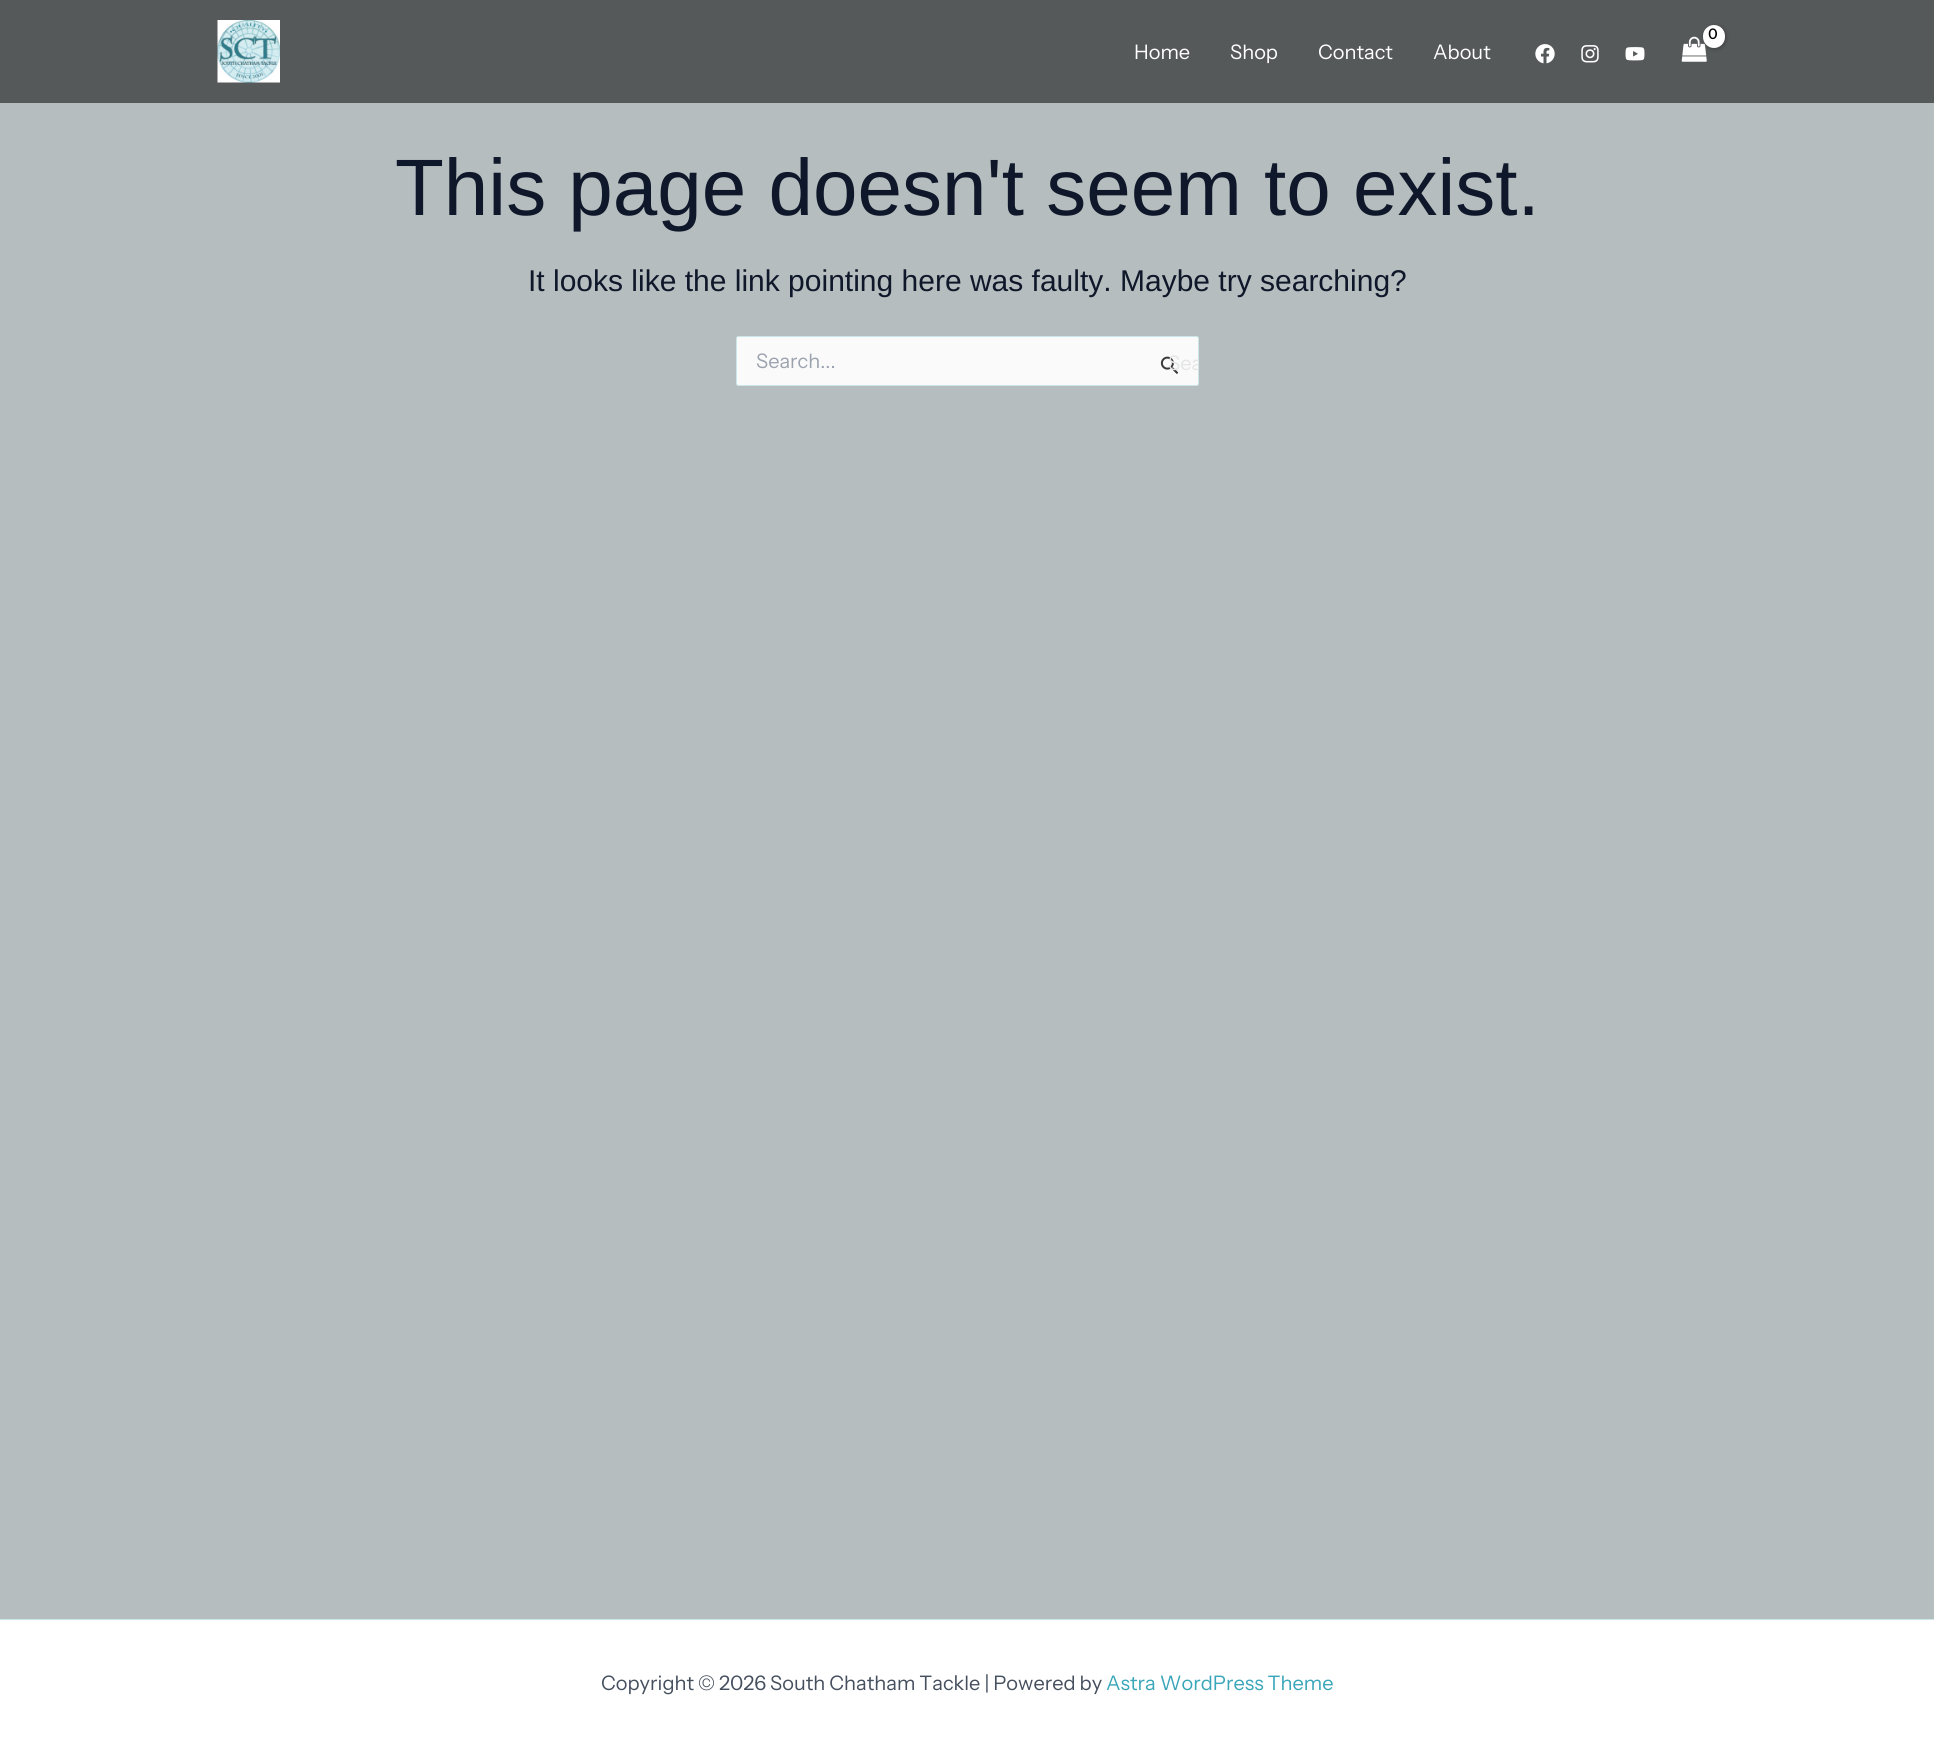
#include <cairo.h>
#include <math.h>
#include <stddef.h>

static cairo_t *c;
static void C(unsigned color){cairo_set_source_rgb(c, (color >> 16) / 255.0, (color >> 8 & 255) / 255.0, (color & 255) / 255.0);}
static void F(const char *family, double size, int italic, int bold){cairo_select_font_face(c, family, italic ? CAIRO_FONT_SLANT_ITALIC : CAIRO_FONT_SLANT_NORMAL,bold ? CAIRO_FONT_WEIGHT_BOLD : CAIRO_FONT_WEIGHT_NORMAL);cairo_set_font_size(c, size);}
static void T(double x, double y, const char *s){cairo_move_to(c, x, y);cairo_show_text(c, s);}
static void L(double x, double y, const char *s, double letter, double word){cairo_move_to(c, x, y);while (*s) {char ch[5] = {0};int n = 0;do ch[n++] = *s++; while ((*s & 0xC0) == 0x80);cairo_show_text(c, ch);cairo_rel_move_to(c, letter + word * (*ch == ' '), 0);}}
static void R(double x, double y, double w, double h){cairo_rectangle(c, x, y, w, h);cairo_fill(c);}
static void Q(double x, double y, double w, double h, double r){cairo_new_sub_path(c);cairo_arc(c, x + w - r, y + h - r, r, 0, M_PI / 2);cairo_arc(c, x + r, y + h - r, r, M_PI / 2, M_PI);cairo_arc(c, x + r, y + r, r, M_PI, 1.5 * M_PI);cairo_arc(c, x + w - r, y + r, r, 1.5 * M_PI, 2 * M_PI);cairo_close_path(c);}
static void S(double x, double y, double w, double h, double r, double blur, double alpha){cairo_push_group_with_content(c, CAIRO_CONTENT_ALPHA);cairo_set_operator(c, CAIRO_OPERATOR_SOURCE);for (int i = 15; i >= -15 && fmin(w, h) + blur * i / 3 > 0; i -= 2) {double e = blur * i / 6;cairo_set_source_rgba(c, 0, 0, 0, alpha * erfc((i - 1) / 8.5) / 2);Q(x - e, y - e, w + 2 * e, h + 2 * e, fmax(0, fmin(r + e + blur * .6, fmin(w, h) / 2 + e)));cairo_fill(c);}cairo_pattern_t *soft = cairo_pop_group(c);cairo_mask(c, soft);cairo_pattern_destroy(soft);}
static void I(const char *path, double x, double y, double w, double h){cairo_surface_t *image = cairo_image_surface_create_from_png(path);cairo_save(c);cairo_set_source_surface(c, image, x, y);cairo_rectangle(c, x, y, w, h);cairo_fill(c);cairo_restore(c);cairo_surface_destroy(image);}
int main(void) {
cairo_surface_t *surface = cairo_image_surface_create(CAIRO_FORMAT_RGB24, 1934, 1744);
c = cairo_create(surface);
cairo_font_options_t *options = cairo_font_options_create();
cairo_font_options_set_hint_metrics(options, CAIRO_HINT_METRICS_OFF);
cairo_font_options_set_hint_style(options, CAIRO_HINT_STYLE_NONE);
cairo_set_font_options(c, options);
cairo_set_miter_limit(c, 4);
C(0xb5bdbe);
cairo_paint(c);
C(0x56595a);
R(0,0,1934,103);
I("1.png",217,20,63,63);
I("2.png",1681,36,26,26);
C(0x000000);
S(1704,26,22,23,11,2,.3);
C(0xffffff);
Q(1703,25,22,23,11);
cairo_fill(c);
F("Instrument Sans",14,0,1);
C(0x000000);
L(1708,39,"0",-1,0);
F("Instrument Sans",20,0,0);
C(0xffffff);
T(1134,59,"Home");
T(1230,59,"Shop");
T(1318,59,"Contact");
T(1433,59,"About");
I("3.png",1535,44,20,20);
I("4.png",1581,45,18,18);
I("5.png",1625,47,20,14);
F("Liberation Sans",80,0,0);
C(0x0f172a);
T(395,215,"This page doesn't seem to exist.");
F("Liberation Sans",30,0,0);
T(528,291,"It looks like the link pointing here was faulty. Maybe try searching?");
C(0xfafafa);
Q(736.5,336.5,462,49,2);
cairo_fill_preserve(c);
C(0xcae6e8);
cairo_set_line_width(c,1);
cairo_stroke(c);
F("Instrument Sans",20,0,0);
C(0x9ca3af);
T(756,368,"Search...");
I("6.png",1160,356,18,18);
cairo_save(c);
Q(1143,336,56,53,2.5);
cairo_clip(c);
C(0xe4e5e5);
T(1168,370,"Sea");
cairo_restore(c);
C(0xffffff);
R(0,1620,1934,124);
C(0xcae6e8);
R(0,1619,1934,1);
C(0x454f5e);
T(601,1690,"Copyright © 2026 South Chatham Tackle | Powered by");
C(0x3aa6b9);
T(1106,1690,"Astra WordPress Theme");
cairo_surface_write_to_png(surface, "o.png");
cairo_font_options_destroy(options);
cairo_destroy(c);
cairo_surface_destroy(surface);
return 0;
}
